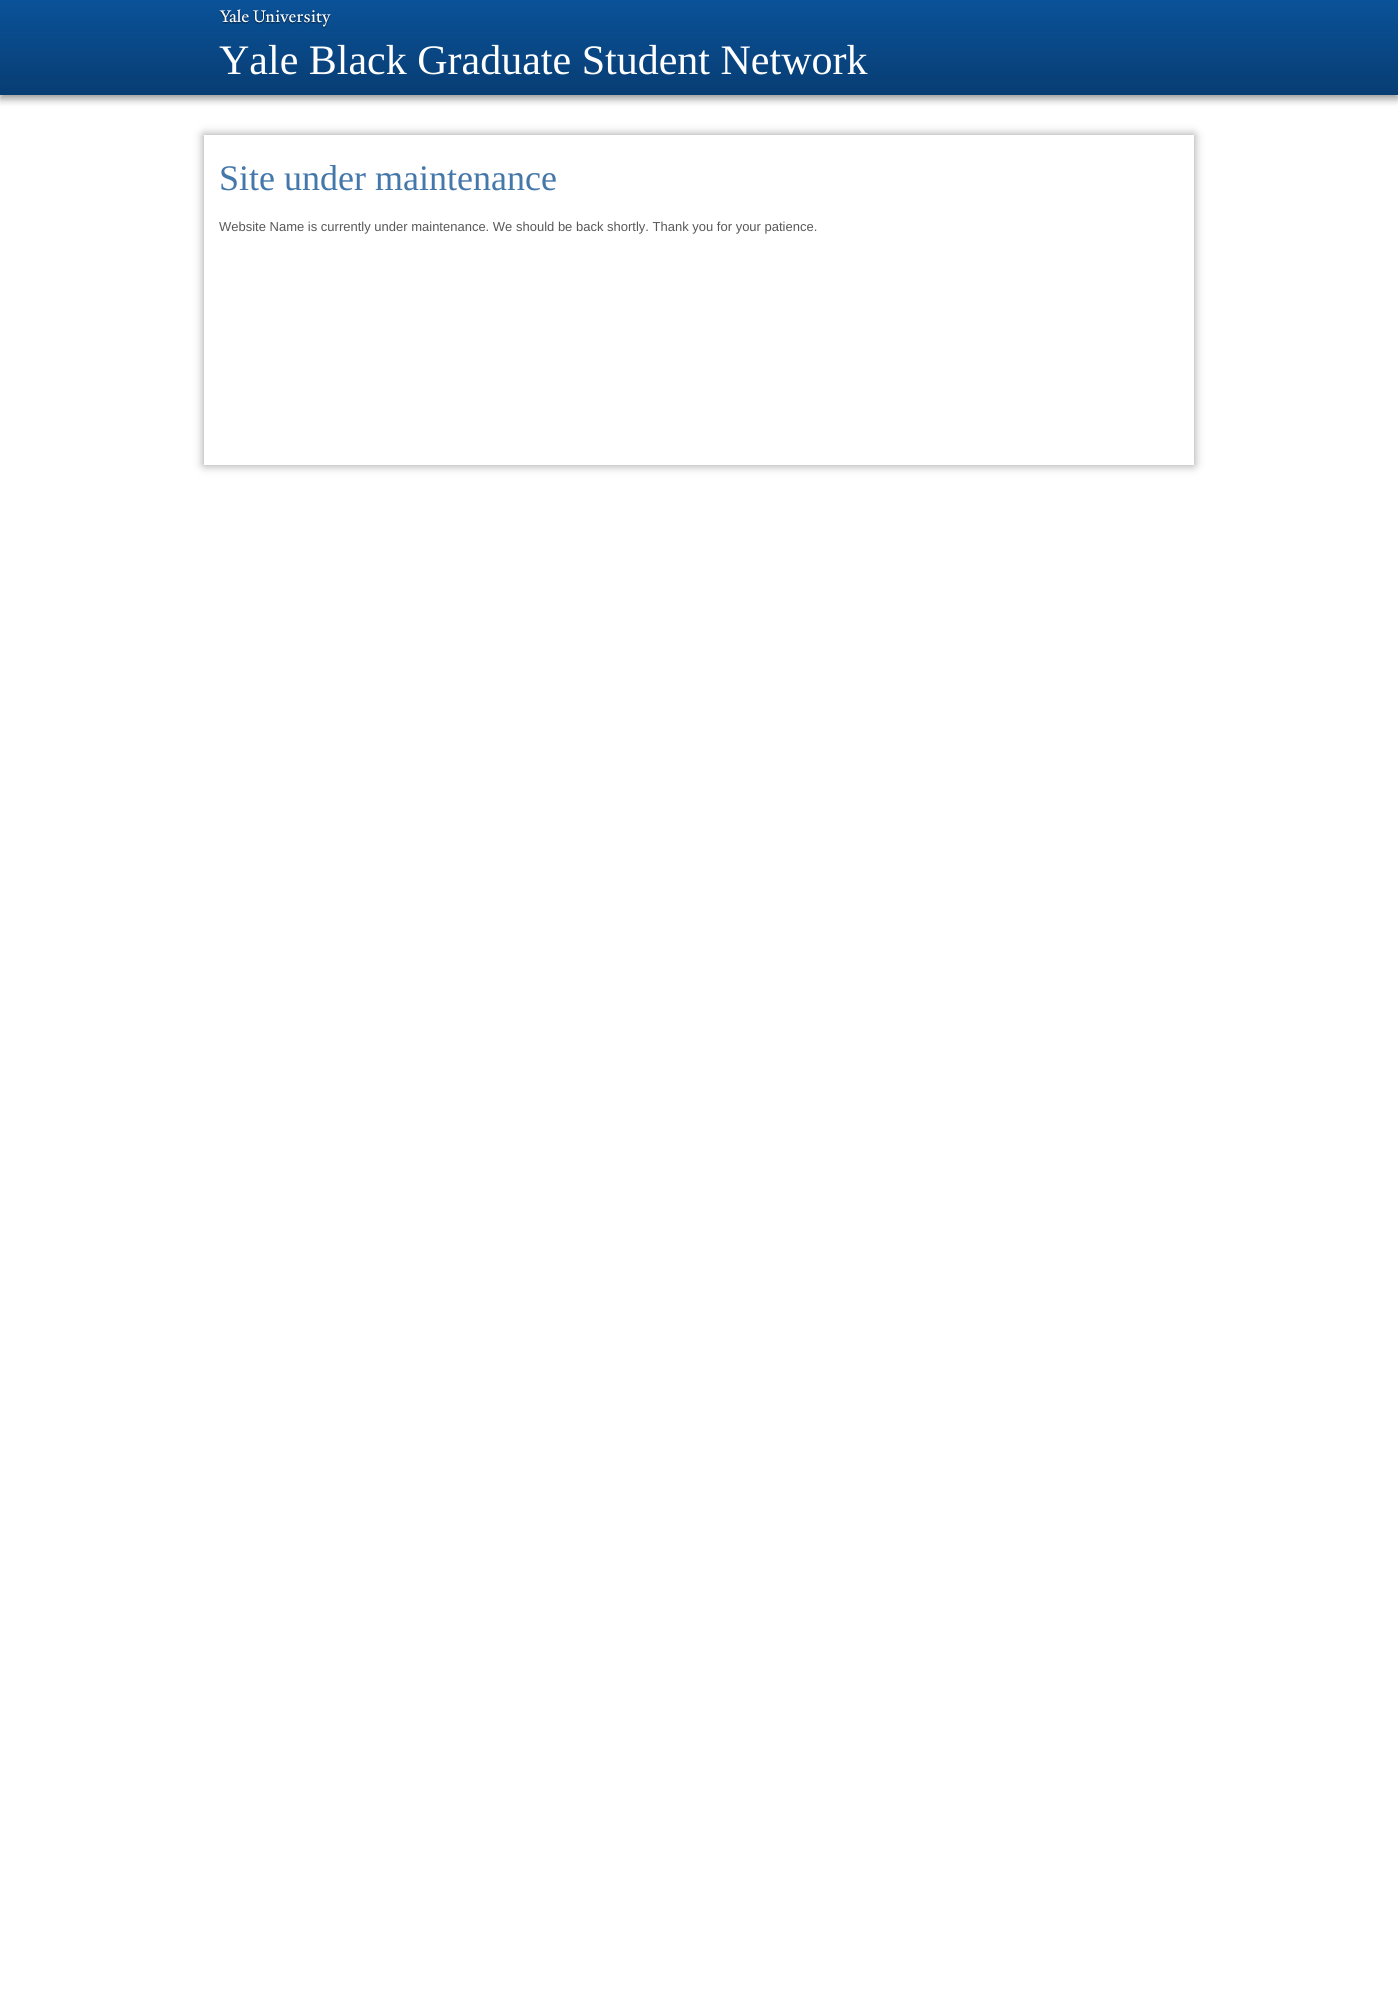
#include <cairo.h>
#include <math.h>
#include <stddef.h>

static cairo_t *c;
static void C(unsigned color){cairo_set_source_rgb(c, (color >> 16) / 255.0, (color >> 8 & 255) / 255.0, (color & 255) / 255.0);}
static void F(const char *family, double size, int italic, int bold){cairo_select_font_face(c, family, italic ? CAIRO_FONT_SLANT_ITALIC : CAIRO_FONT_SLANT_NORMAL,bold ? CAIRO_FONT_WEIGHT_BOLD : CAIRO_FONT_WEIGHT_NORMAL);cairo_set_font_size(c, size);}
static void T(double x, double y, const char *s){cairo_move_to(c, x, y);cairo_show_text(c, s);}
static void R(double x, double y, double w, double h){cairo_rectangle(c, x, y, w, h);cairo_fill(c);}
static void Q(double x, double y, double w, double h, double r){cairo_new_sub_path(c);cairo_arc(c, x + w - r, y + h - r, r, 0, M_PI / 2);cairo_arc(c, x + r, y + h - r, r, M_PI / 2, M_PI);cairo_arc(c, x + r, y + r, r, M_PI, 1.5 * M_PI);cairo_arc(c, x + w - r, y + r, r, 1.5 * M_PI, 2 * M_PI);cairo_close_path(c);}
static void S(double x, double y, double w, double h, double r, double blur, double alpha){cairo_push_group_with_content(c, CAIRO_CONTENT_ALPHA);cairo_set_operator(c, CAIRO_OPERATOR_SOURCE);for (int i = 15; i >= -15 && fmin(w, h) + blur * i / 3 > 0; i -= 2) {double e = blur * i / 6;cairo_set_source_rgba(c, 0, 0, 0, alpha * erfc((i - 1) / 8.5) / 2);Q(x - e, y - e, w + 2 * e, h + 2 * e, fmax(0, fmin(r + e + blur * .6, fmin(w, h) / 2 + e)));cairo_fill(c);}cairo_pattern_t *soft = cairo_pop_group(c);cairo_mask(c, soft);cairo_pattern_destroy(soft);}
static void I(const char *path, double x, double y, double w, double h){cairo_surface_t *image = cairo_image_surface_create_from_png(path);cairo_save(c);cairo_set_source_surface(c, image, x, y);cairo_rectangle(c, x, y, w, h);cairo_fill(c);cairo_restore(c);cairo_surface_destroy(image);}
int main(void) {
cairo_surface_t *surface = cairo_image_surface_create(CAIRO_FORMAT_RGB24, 1398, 1989);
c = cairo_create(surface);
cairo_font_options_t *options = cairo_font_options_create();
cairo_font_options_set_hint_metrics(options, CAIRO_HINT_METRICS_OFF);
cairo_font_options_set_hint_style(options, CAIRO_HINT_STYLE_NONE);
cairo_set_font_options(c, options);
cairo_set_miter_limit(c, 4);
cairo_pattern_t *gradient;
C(0xffffff);
cairo_paint(c);
C(0x000000);
S(0,4,1398,95,0,4,.4);
gradient = cairo_pattern_create_linear(699,0,699,95);
cairo_pattern_add_color_stop_rgba(gradient,0,0.039,0.322,0.6,1);
cairo_pattern_add_color_stop_rgba(gradient,1,0.031,0.239,0.451,1);
cairo_set_source(c,gradient);
cairo_pattern_destroy(gradient);
R(0,0,1398,95);
I("1.png",219,9,112,20);
F("Liberation Serif",42,0,0);
C(0xffffff);
T(219,74,"Yale Black Graduate Student Network");
cairo_save(c);
cairo_set_fill_rule(c,CAIRO_FILL_RULE_EVEN_ODD);
cairo_new_path(c);
cairo_move_to(c,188,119);
cairo_line_to(c,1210,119);
cairo_line_to(c,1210,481);
cairo_line_to(c,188,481);
cairo_close_path(c);
cairo_move_to(c,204,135);
cairo_line_to(c,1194,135);
cairo_line_to(c,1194,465);
cairo_line_to(c,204,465);
cairo_close_path(c);
cairo_clip(c);
C(0x000000);
S(204,135,990,330,0,5,.4);
cairo_restore(c);
F("Liberation Serif",36,0,0);
C(0x4477aa);
T(219,190,"Site under maintenance");
F("Liberation Sans",13,0,0);
C(0x585858);
T(219,231,"Website Name is currently under maintenance. We should be back shortly. Thank you for your patience.");
cairo_surface_write_to_png(surface, "o.png");
cairo_font_options_destroy(options);
cairo_destroy(c);
cairo_surface_destroy(surface);
return 0;
}
